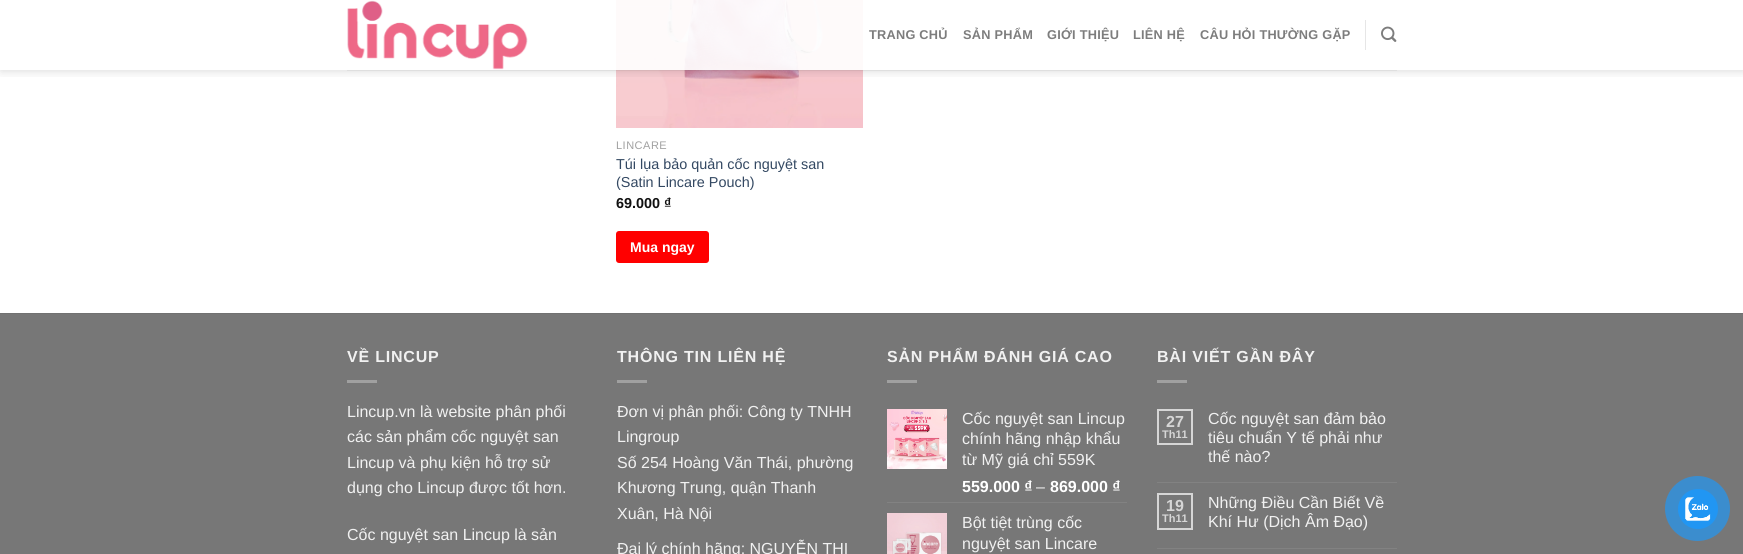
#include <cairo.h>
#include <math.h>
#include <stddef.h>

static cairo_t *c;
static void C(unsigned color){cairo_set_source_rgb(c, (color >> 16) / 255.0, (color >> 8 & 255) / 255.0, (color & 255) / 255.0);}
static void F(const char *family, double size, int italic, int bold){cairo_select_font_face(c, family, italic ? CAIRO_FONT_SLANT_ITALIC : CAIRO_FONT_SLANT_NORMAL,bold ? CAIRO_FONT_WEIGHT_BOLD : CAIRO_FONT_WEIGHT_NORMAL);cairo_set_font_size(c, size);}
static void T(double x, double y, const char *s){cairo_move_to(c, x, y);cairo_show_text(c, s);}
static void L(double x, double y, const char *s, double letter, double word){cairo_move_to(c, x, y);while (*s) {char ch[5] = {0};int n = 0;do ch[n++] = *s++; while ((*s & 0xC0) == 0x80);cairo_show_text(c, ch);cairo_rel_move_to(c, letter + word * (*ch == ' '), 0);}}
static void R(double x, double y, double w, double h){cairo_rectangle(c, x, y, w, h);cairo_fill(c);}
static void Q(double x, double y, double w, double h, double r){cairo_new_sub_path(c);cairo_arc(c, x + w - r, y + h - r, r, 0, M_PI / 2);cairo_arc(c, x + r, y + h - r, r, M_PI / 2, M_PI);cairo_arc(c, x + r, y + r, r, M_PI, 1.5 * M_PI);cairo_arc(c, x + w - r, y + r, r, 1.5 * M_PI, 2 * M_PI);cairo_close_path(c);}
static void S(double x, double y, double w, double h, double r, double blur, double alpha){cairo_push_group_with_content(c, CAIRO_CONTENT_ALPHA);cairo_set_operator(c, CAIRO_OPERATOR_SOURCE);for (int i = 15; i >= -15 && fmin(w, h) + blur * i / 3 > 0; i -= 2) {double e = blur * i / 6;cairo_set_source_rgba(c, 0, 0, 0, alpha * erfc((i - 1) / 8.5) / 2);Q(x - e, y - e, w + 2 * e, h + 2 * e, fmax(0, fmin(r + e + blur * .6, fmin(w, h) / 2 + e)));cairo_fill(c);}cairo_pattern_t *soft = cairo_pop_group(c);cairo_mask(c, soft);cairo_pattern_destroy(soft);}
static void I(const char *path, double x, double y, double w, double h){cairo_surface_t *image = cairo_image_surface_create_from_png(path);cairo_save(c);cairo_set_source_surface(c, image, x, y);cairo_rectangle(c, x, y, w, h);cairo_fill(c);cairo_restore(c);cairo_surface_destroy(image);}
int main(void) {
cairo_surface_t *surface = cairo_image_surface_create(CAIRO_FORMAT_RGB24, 1743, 554);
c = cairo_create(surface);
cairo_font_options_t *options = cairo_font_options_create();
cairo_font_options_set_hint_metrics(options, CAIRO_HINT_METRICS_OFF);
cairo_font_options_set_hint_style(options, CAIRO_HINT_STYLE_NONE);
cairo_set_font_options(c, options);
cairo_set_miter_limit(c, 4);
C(0xffffff);
cairo_paint(c);
I("3.png",616,0,247,128);
cairo_save(c);
cairo_rectangle(c,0,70,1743,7);
cairo_clip(c);
C(0x000000);
S(1,1,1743,70,0,5,.15);
cairo_restore(c);
cairo_set_source_rgba(c,1,1,1,0.9);
R(616,0,247,70);
I("1.png",347,0,181,70);
F("Liberation Sans",12.75,0,1);
C(0x7d7d7d);
L(869,39,"TRANG CHỦ",.25,0);
L(963,39,"SẢN PHẨM",.25,0);
L(1047,39,"GIỚI THIỆU",.25,0);
L(1133,39,"LIÊN HỆ",.25,0);
L(1200,39,"CÂU HỎI THƯỜNG GẶP",.25,0);
C(0xe6e6e6);
R(1365,20,1,30);
I("2.png",1381,26,16,16);
cairo_set_source_rgba(c,0.467,0.467,0.467,0.1);
R(347,70,1050,1);
F("Liberation Sans",11,0,0);
C(0xa0a0a0);
L(616,149,"LINCARE",.5,0);
F("Liberation Sans",14.4,0,0);
C(0x334862);
T(616,169,"Túi lụa bảo quản cốc nguyệt san");
T(616,187,"(Satin Lincare Pouch)");
F("Liberation Sans",14.4,0,1);
C(0x111111);
T(616,208,"69.000 ₫");
C(0xff0000);
Q(616,231,93,32,3);
cairo_fill(c);
F("Liberation Sans",14,0,1);
C(0xffffff);
T(630,252,"Mua ngay");
C(0x777777);
R(0,314,1743,240);
C(0x717171);
R(0,313,1743,1);
F("Liberation Sans",16,0,1);
C(0xf1f1f1);
L(347,362,"VỀ LINCUP",.8,0);
C(0xa0a0a0);
R(347,380,30,3);
F("Liberation Sans",16,0,0);
C(0xf1f1f1);
T(347,417,"Lincup.vn là website phân phối");
T(347,442,"các sản phẩm cốc nguyệt san");
T(347,468,"Lincup và phụ kiện hỗ trợ sử");
T(347,493,"dụng cho Lincup được tốt hơn.");
T(347,540,"Cốc nguyệt san Lincup là sản");
F("Liberation Sans",16,0,1);
L(617,362,"THÔNG TIN LIÊN HỆ",.8,0);
C(0xa0a0a0);
R(617,380,30,3);
F("Liberation Sans",16,0,0);
C(0xf1f1f1);
T(617,417,"Đơn vị phân phối: Công ty TNHH");
T(617,442,"Lingroup");
T(617,468,"Số 254 Hoàng Văn Thái, phường");
T(617,493,"Khương Trung, quận Thanh");
T(617,519,"Xuân, Hà Nội");
T(617,554,"Đại lý chính hãng: NGUYỄN THỊ");
F("Liberation Sans",16,0,1);
L(887,362,"SẢN PHẨM ĐÁNH GIÁ CAO",.8,0);
C(0xa0a0a0);
R(887,380,30,3);
I("4.png",887,409,60,60);
F("Liberation Sans",16,0,0);
C(0xf1f1f1);
T(962,424,"Cốc nguyệt san Lincup");
T(962,444,"chính hãng nhập khẩu");
T(962,465,"từ Mỹ giá chỉ 559K");
F("Liberation Sans",16,0,1);
C(0xffffff);
T(962,492,"559.000 ₫");
F("Liberation Sans",16,0,0);
C(0xf1f1f1);
T(1036,492,"–");
F("Liberation Sans",16,0,1);
C(0xffffff);
T(1050,492,"869.000 ₫");
C(0x828282);
R(887,502,240,1);
I("5.png",887,513,60,41);
F("Liberation Sans",16,0,0);
C(0xf1f1f1);
T(962,528,"Bột tiệt trùng cốc");
T(962,549,"nguyệt san Lincare");
F("Liberation Sans",16,0,1);
L(1157,362,"BÀI VIẾT GẦN ĐÂY",.8,0);
C(0xa0a0a0);
R(1157,380,30,3);
cairo_rectangle(c,1158,410,34,34);
C(0xd6d6d6);
cairo_stroke(c);
T(1166,427,"27");
F("Liberation Sans",11,0,1);
T(1162,438,"Th11");
F("Liberation Sans",16,0,0);
C(0xf1f1f1);
T(1208,424,"Cốc nguyệt san đảm bảo");
T(1208,443,"tiêu chuẩn Y tế phải như");
T(1208,462,"thế nào?");
C(0x828282);
R(1157,482,240,1);
cairo_rectangle(c,1158,494,34,35);
C(0xd6d6d6);
cairo_stroke(c);
F("Liberation Sans",16,0,1);
T(1166,511,"19");
F("Liberation Sans",11,0,1);
T(1162,522,"Th11");
F("Liberation Sans",16,0,0);
C(0xf1f1f1);
T(1208,508,"Những Điều Cần Biết Về");
T(1208,527,"Khí Hư (Dịch Âm Đạo)");
C(0x828282);
R(1157,548,240,1);
C(0x3b8dce);
cairo_new_path(c);
cairo_arc(c,1697.5,508.5,32.5,0,2 * M_PI);
cairo_fill(c);
C(0x2196f3);
cairo_arc(c,1698,509,20,0,2 * M_PI);
cairo_fill(c);
I("6.png",1685,497,26,24);
cairo_surface_write_to_png(surface, "o.png");
cairo_font_options_destroy(options);
cairo_destroy(c);
cairo_surface_destroy(surface);
return 0;
}
